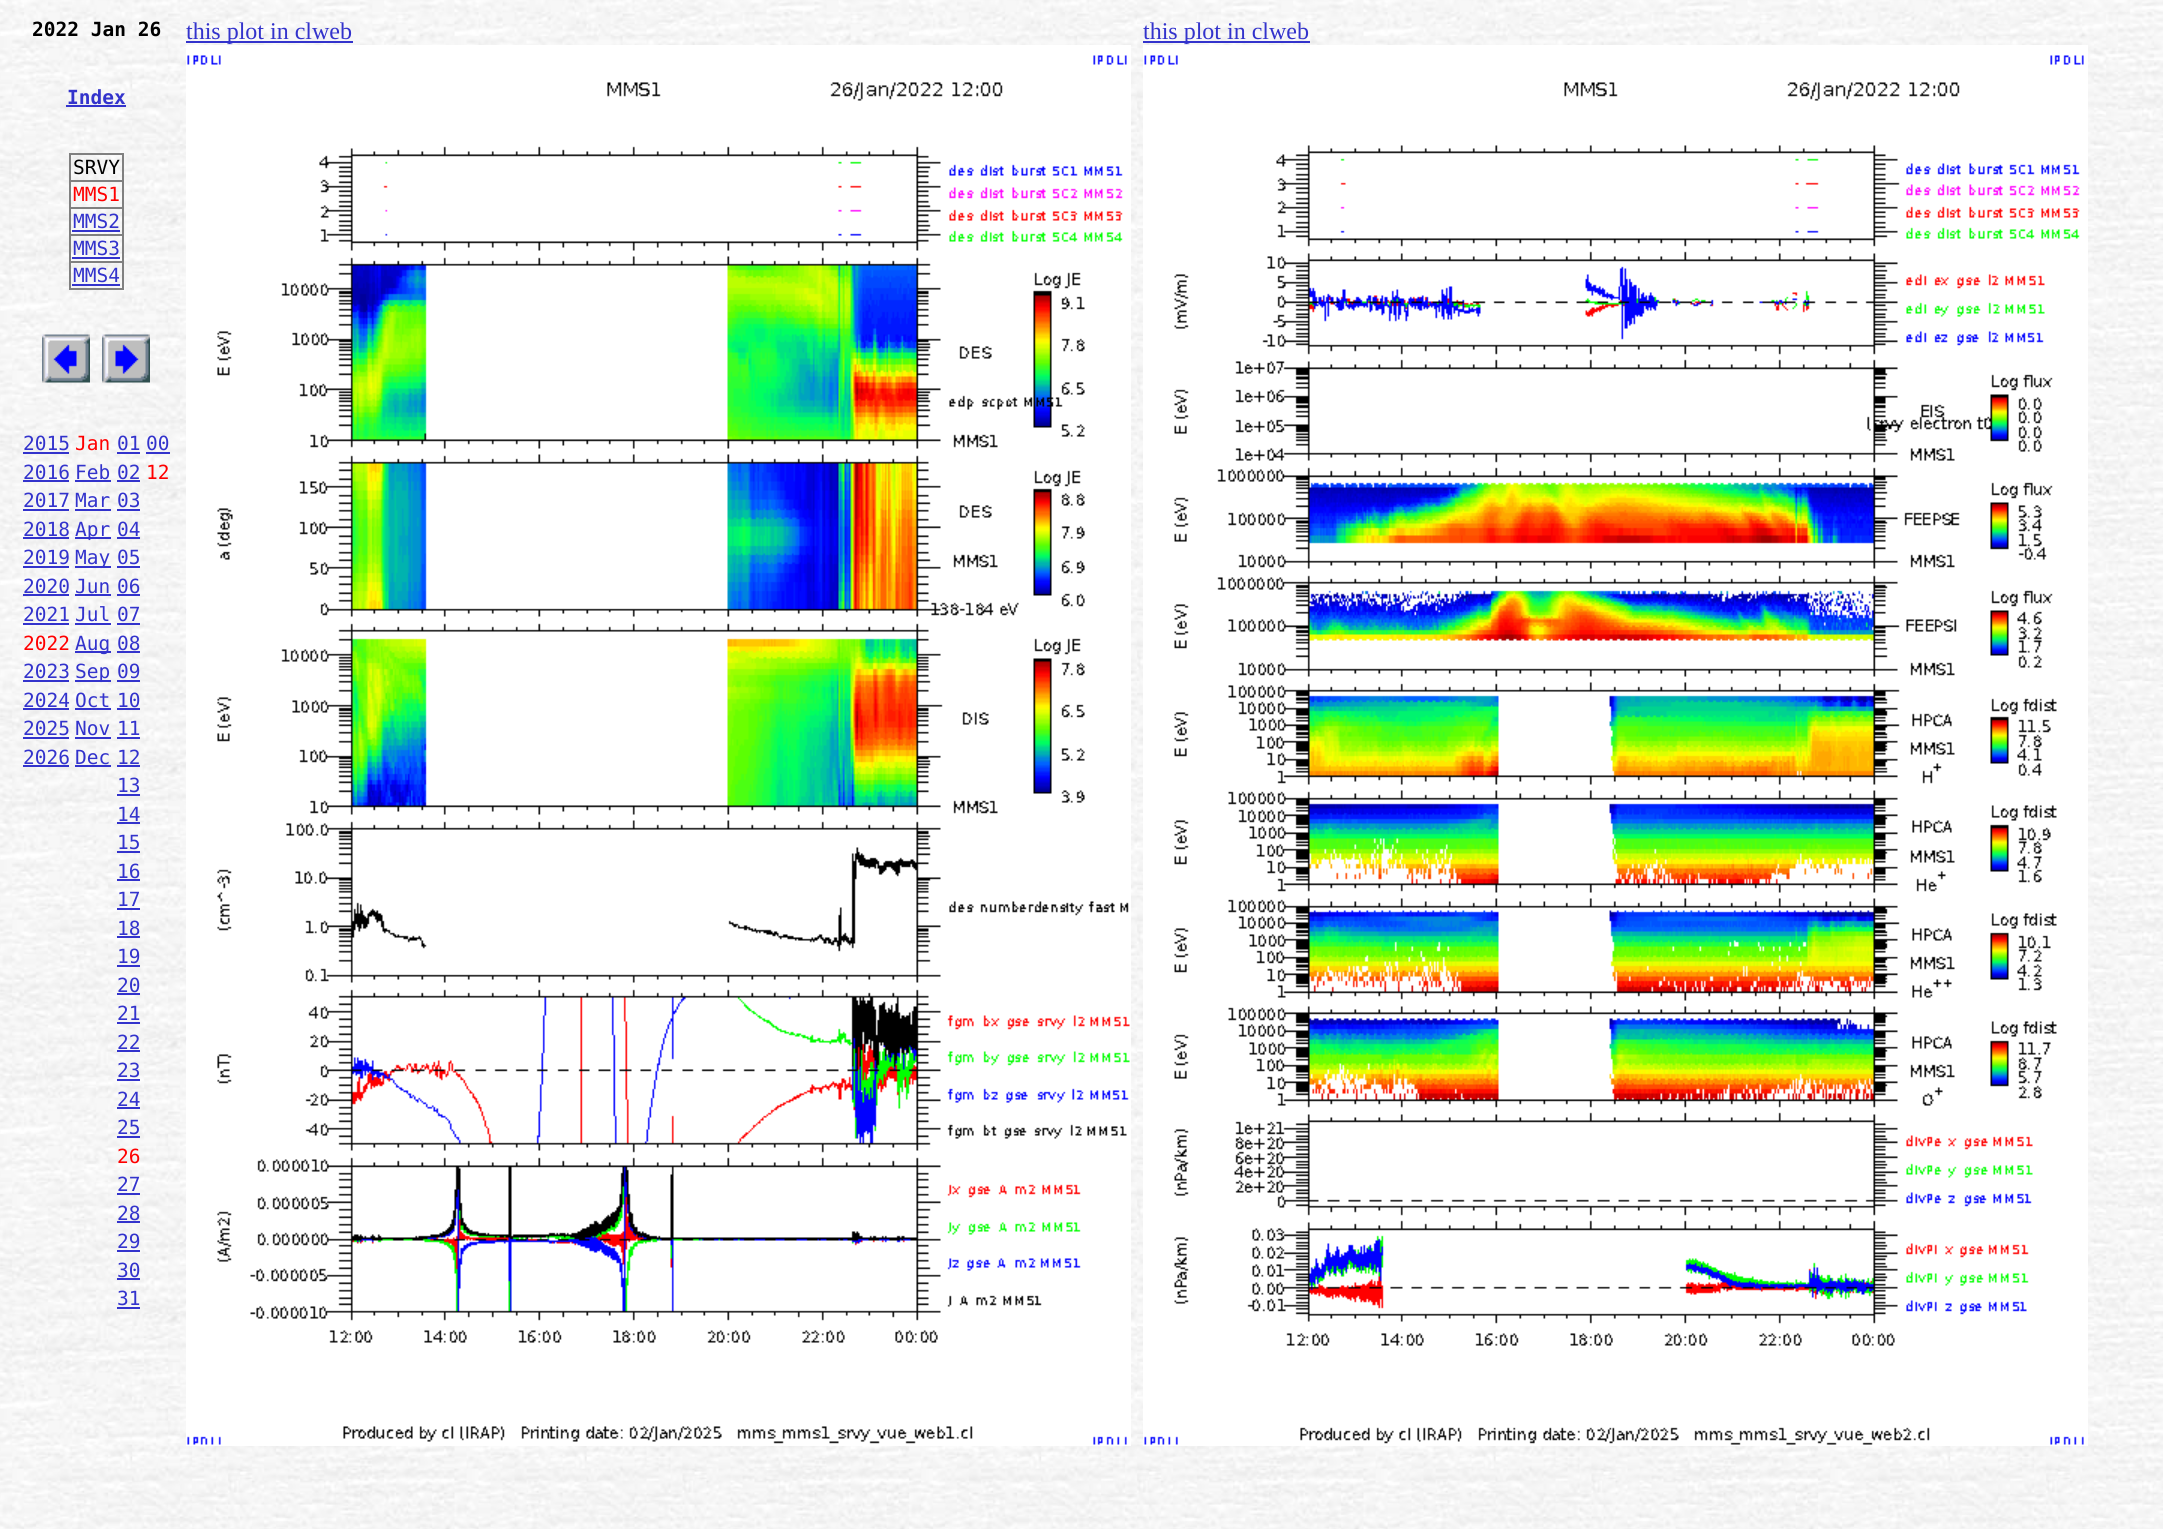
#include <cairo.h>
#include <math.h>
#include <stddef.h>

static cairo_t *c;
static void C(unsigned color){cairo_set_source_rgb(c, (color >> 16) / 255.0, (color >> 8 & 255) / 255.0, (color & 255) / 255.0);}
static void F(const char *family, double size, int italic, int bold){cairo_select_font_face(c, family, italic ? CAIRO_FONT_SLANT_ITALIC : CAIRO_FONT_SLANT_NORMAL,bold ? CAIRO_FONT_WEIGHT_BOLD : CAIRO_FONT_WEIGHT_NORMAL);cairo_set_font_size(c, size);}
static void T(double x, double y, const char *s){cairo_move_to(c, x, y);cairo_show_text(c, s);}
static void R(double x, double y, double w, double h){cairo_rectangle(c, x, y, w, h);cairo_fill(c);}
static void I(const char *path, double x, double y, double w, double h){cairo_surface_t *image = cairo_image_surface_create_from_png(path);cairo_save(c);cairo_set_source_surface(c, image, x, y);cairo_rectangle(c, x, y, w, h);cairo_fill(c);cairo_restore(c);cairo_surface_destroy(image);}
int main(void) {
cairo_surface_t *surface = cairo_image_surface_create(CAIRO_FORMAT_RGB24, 2163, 1529);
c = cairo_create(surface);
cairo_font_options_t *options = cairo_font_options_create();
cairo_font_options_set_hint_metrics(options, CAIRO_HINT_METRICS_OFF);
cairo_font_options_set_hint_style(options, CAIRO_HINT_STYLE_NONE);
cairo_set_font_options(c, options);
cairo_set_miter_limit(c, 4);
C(0xffffff);
cairo_paint(c);
I("1.png",0,0,2163,1529);
F("DejaVu Sans Mono",19.5,0,1);
C(0x000000);
T(32,36,"2022 Jan 26");
C(0x3333cc);
T(67,104,"Index");
R(66,105,60,2);
C(0x808080);
R(69,153,54,2);
R(122,153,2,137);
R(69,288,54,2);
R(69,153,2,137);
F("DejaVu Sans Mono",19.5,0,0);
C(0x000000);
T(73,174,"SRVY");
C(0x808080);
R(69,180,54,2);
C(0xff0000);
T(73,201,"MMS1");
C(0x808080);
R(69,207,54,2);
C(0x3333cc);
T(73,228,"MMS2");
R(72,230,48,2);
C(0x808080);
R(69,234,54,2);
C(0x3333cc);
T(73,255,"MMS3");
R(72,257,48,2);
C(0x808080);
R(69,261,54,2);
C(0x3333cc);
T(73,282,"MMS4");
R(72,284,48,2);
I("2.png",42,334,48,49);
I("3.png",102,334,48,49);
T(23,450,"2015");
R(23,452,46,2);
C(0xff0000);
T(75,450,"Jan");
C(0x3333cc);
T(117,450,"01");
R(117,452,23,2);
T(146,450,"00");
R(146,452,24,2);
T(23,479,"2016");
R(23,480,46,2);
T(75,479,"Feb");
R(75,480,36,2);
T(117,479,"02");
R(117,480,23,2);
C(0xff0000);
T(146,479,"12");
C(0x3333cc);
T(23,507,"2017");
R(23,509,46,2);
T(75,507,"Mar");
R(75,509,36,2);
T(117,507,"03");
R(117,509,23,2);
T(23,536,"2018");
R(23,537,46,2);
R(75,537,36,2);
T(75,536,"Apr");
T(117,536,"04");
R(117,537,23,2);
T(23,564,"2019");
R(23,566,46,2);
R(75,566,36,2);
T(75,564,"May");
T(117,564,"05");
R(117,566,23,2);
T(23,593,"2020");
R(23,594,46,2);
T(75,593,"Jun");
R(75,594,36,2);
T(117,593,"06");
R(117,594,23,2);
T(23,621,"2021");
R(23,623,46,2);
T(75,621,"Jul");
R(75,623,36,2);
T(117,621,"07");
R(117,623,23,2);
C(0xff0000);
T(23,650,"2022");
C(0x3333cc);
R(75,651,36,2);
T(75,650,"Aug");
T(117,650,"08");
R(117,651,23,2);
T(23,678,"2023");
R(23,680,46,2);
R(75,680,36,2);
T(75,678,"Sep");
T(117,678,"09");
R(117,680,23,2);
T(23,707,"2024");
R(23,708,46,2);
T(75,707,"Oct");
R(75,708,36,2);
T(117,707,"10");
R(117,708,23,2);
T(23,735,"2025");
R(23,737,46,2);
T(75,735,"Nov");
R(75,737,36,2);
T(117,735,"11");
R(117,737,23,2);
T(23,764,"2026");
R(23,765,46,2);
T(75,764,"Dec");
R(75,765,36,2);
T(117,764,"12");
R(117,765,23,2);
T(117,792,"13");
R(117,794,23,2);
T(117,821,"14");
R(117,822,23,2);
T(117,849,"15");
R(117,851,23,2);
T(117,878,"16");
R(117,879,23,2);
T(117,906,"17");
R(117,908,23,2);
T(117,935,"18");
R(117,936,23,2);
T(117,963,"19");
R(117,965,23,2);
T(117,992,"20");
R(117,993,23,2);
T(117,1020,"21");
R(117,1022,23,2);
T(117,1049,"22");
R(117,1050,23,2);
T(117,1077,"23");
R(117,1079,23,2);
T(117,1106,"24");
R(117,1107,23,2);
T(117,1134,"25");
R(117,1136,23,2);
C(0xff0000);
T(117,1163,"26");
C(0x3333cc);
T(117,1191,"27");
R(117,1193,23,2);
T(117,1220,"28");
R(117,1221,23,2);
T(117,1248,"29");
R(117,1250,23,2);
T(117,1277,"30");
R(117,1278,23,2);
T(117,1305,"31");
R(117,1307,23,2);
R(186,41,167,2);
F("Liberation Serif",24,0,0);
T(186,39,"this plot in clweb");
I("4.png",186,45,945,1401);
R(1143,41,167,2);
T(1143,39,"this plot in clweb");
I("5.png",1143,45,945,1401);
cairo_surface_write_to_png(surface, "o.png");
cairo_font_options_destroy(options);
cairo_destroy(c);
cairo_surface_destroy(surface);
return 0;
}
